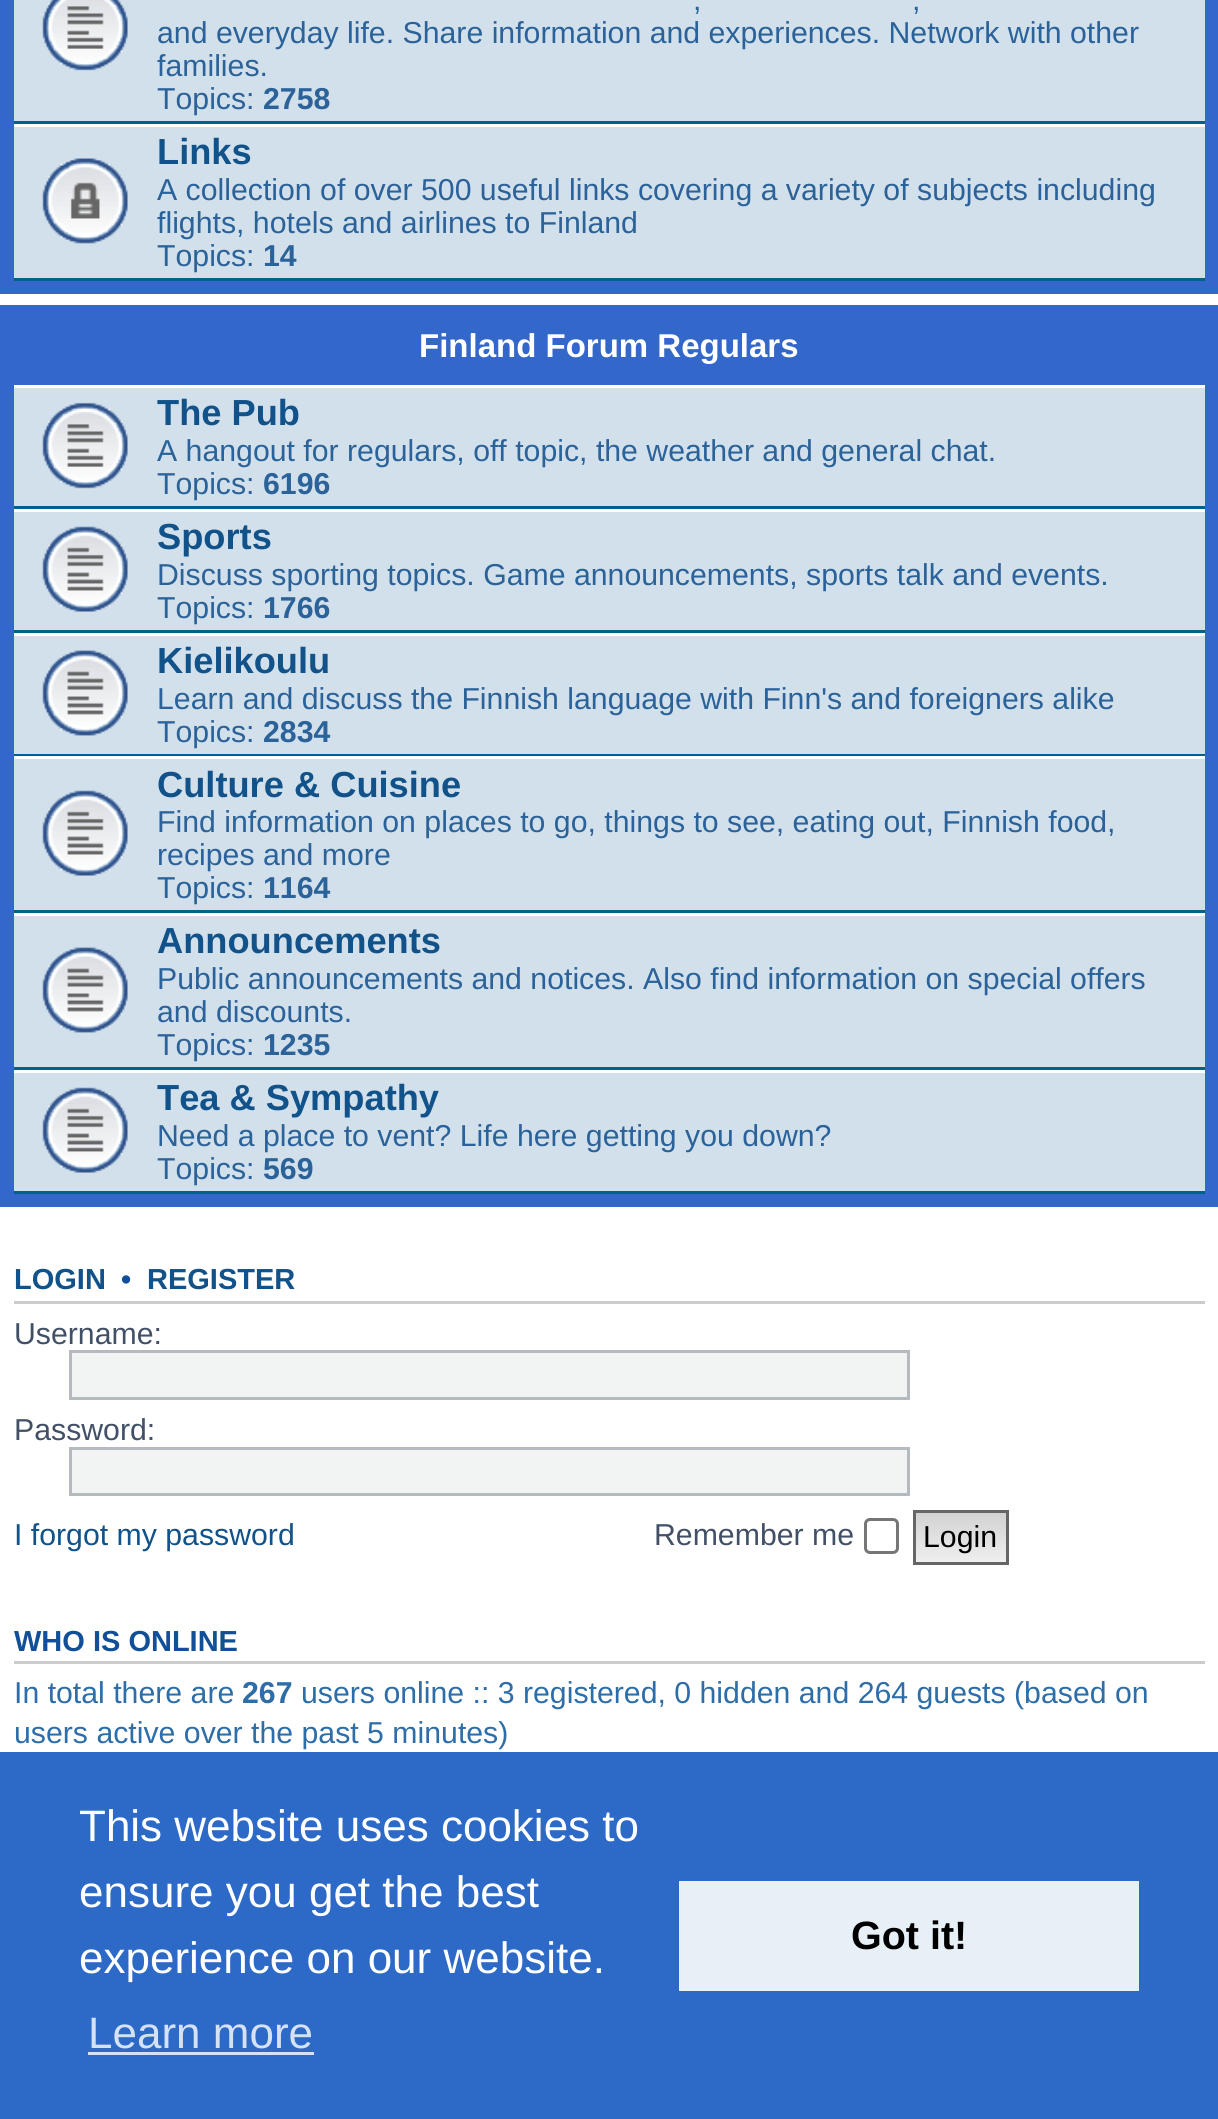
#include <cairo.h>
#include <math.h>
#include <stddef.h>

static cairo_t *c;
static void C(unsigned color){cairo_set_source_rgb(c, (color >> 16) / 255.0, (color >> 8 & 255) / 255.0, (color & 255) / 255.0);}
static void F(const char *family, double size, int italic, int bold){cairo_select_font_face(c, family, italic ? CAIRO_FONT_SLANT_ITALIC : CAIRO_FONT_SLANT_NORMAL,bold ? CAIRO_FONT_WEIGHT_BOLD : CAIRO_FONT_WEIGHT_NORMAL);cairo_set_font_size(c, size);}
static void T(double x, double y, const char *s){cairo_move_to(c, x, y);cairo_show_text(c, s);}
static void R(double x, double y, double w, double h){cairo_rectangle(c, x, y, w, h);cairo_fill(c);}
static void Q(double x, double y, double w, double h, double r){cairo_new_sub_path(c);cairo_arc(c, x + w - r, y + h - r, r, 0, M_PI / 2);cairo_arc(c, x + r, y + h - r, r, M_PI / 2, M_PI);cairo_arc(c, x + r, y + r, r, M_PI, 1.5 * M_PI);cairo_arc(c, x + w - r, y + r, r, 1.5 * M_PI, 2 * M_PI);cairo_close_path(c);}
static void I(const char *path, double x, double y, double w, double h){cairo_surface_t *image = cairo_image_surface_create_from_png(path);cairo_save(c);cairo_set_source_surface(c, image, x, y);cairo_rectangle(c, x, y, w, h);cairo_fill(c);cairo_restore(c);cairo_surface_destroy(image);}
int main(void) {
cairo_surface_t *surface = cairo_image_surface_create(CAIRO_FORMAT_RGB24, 1218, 2119);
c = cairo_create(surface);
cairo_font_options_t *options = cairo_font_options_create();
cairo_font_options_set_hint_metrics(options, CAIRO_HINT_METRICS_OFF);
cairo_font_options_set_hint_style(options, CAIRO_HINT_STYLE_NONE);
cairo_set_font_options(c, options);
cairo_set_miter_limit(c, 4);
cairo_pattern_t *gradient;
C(0xffffff);
cairo_paint(c);
C(0x3367ca);
R(0,0,1218,294);
C(0xd2e0eb);
R(14,0,1191,278);
C(0x00608f);
R(14,121,1191,3);
I("1.png",42,0,86,71);
F("Liberation Sans",30.25,0,0);
C(0x2a6299);
T(693,10,",");
T(912,10,",");
T(157,43,"and everyday life. Share information and experiences. Network with other");
T(157,76,"families.");
T(157,109,"Topics:");
F("Liberation Sans",30.25,0,1);
T(263,109,"2758");
C(0xffffff);
R(14,124,1191,3);
C(0x00608f);
R(14,278,1191,3);
I("2.png",42,158,86,86);
F("Liberation Sans",36.25,0,1);
C(0x105289);
T(157,164,"Links");
F("Liberation Sans",30.25,0,0);
C(0x2a6299);
T(157,200,"A collection of over 500 useful links covering a variety of subjects including");
T(157,233,"flights, hotels and airlines to Finland");
T(157,266,"Topics:");
F("Liberation Sans",30.25,0,1);
T(263,266,"14");
C(0x3367ca);
R(0,305,1218,902);
F("Liberation Sans",33,0,1);
C(0xffffff);
T(419,357,"Finland Forum Regulars");
C(0xd2e0eb);
R(14,388,1191,803);
C(0xffffff);
R(14,385,1191,3);
C(0x00608f);
R(14,506,1191,3);
I("3.png",42,402,86,87);
F("Liberation Sans",36.25,0,1);
C(0x105289);
T(157,425,"The Pub");
F("Liberation Sans",30.25,0,0);
C(0x2a6299);
T(157,461,"A hangout for regulars, off topic, the weather and general chat.");
T(157,494,"Topics:");
F("Liberation Sans",30.25,0,1);
T(263,494,"6196");
C(0xffffff);
R(14,509,1191,3);
C(0x00608f);
R(14,630,1191,3);
I("4.png",42,526,86,86);
F("Liberation Sans",36.25,0,1);
C(0x105289);
T(157,549,"Sports");
F("Liberation Sans",30.25,0,0);
C(0x2a6299);
T(157,585,"Discuss sporting topics. Game announcements, sports talk and events.");
T(157,618,"Topics:");
F("Liberation Sans",30.25,0,1);
T(263,618,"1766");
C(0xffffff);
R(14,633,1191,3);
C(0x00608f);
R(14,754,1191,2);
I("5.png",42,650,86,86);
F("Liberation Sans",36.25,0,1);
C(0x105289);
T(157,673,"Kielikoulu");
F("Liberation Sans",30.25,0,0);
C(0x2a6299);
T(157,709,"Learn and discuss the Finnish language with Finn's and foreigners alike");
T(157,742,"Topics:");
F("Liberation Sans",30.25,0,1);
T(263,742,"2834");
C(0xffffff);
R(14,756,1191,3);
C(0x00608f);
R(14,910,1191,3);
I("4.png",42,790,86,86);
F("Liberation Sans",36.25,0,1);
C(0x105289);
T(157,797,"Culture & Cuisine");
F("Liberation Sans",30.25,0,0);
C(0x2a6299);
T(157,832,"Find information on places to go, things to see, eating out, Finnish food,");
T(157,865,"recipes and more");
T(157,898,"Topics:");
F("Liberation Sans",30.25,0,1);
T(263,898,"1164");
C(0xffffff);
R(14,913,1191,3);
C(0x00608f);
R(14,1067,1191,3);
I("5.png",42,947,86,86);
F("Liberation Sans",36.25,0,1);
C(0x105289);
T(157,953,"Announcements");
F("Liberation Sans",30.25,0,0);
C(0x2a6299);
T(157,989,"Public announcements and notices. Also find information on special offers");
T(157,1022,"and discounts.");
T(157,1055,"Topics:");
F("Liberation Sans",30.25,0,1);
T(263,1055,"1235");
C(0xffffff);
R(14,1070,1191,3);
C(0x00608f);
R(14,1191,1191,3);
I("6.png",42,1087,86,86);
F("Liberation Sans",36.25,0,1);
C(0x105289);
T(157,1110,"Tea & Sympathy");
F("Liberation Sans",30.25,0,0);
C(0x2a6299);
T(157,1146,"Need a place to vent? Life here getting you down?");
T(157,1179,"Topics:");
F("Liberation Sans",30.25,0,1);
T(263,1179,"569");
C(0xcccccc);
R(14,1301,1191,3);
F("Liberation Sans",29,0,1);
C(0x105289);
T(14,1289,"LOGIN");
C(0x115098);
T(121,1289,"•");
C(0x105289);
T(147,1289,"REGISTER");
F("Liberation Sans",30.25,0,0);
C(0x425067);
T(14,1344,"Username:");
C(0xf2f3f3);
cairo_rectangle(c,70.5,1351.5,838,47);
cairo_fill_preserve(c);
C(0xb4bac0);
cairo_set_line_width(c,3);
cairo_stroke(c);
C(0x425067);
T(14,1440,"Password:");
C(0xf2f3f3);
cairo_rectangle(c,70.5,1448.5,838,46);
cairo_fill_preserve(c);
C(0xb4bac0);
cairo_stroke(c);
C(0x105289);
T(14,1545,"I forgot my password");
C(0x425067);
T(654,1545,"Remember me");
Q(865.5,1519.5,32,33,4.5);
C(0x767676);
cairo_stroke(c);
gradient = cairo_pattern_create_linear(961,1513,961,1562);
cairo_pattern_add_color_stop_rgba(gradient,0,0.824,0.824,0.824,1);
cairo_pattern_add_color_stop_rgba(gradient,1,0.937,0.937,0.937,1);
cairo_set_source(c,gradient);
cairo_pattern_destroy(gradient);
R(916,1513,90,49);
cairo_rectangle(c,914.5,1511.5,93,52);
C(0x666666);
cairo_stroke(c);
C(0x000000);
T(923,1547,"Login");
C(0xcccccc);
R(14,1661,1191,3);
F("Liberation Sans",29,0,1);
C(0x115098);
T(14,1651,"WHO IS ONLINE");
F("Liberation Sans",30.25,0,0);
C(0x2d6da8);
T(14,1703,"In total there are");
F("Liberation Sans",30.25,0,1);
T(242,1703,"267");
F("Liberation Sans",30.25,0,0);
T(301,1703,"users online :: 3 registered, 0 hidden and 264 guests (based on");
T(14,1743,"users active over the past 5 minutes)");
C(0x2d69c7);
R(0,1752,1218,367);
F("Liberation Sans",44,0,0);
C(0xffffff);
T(79,1841,"This website uses cookies to");
T(79,1907,"ensure you get the best");
T(79,1973,"experience on our website.");
C(0xd5e1f4);
T(88,2048,"Learn more");
R(88,2052,226,3);
C(0xe7f0f6);
R(679,1881,460,110);
F("Liberation Sans",39.5,0,1);
C(0x000000);
T(851,1949,"Got it!");
cairo_surface_write_to_png(surface, "o.png");
cairo_font_options_destroy(options);
cairo_destroy(c);
cairo_surface_destroy(surface);
return 0;
}
